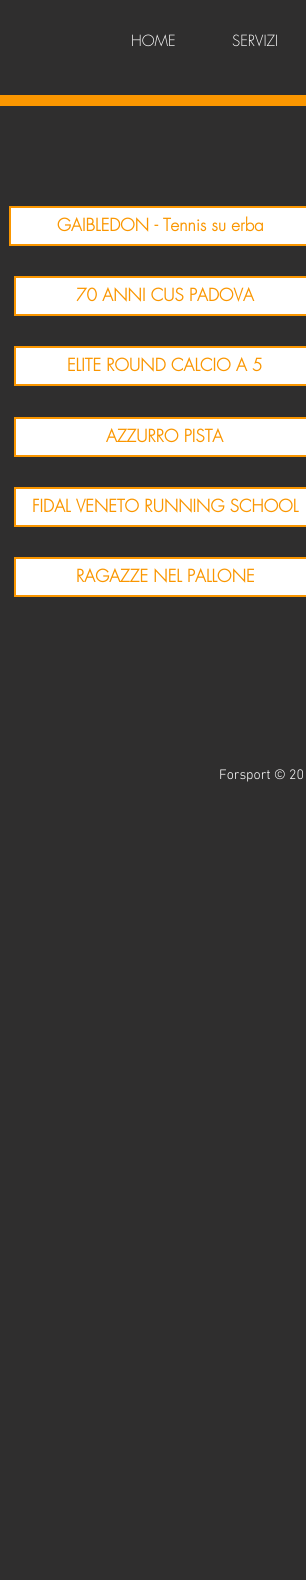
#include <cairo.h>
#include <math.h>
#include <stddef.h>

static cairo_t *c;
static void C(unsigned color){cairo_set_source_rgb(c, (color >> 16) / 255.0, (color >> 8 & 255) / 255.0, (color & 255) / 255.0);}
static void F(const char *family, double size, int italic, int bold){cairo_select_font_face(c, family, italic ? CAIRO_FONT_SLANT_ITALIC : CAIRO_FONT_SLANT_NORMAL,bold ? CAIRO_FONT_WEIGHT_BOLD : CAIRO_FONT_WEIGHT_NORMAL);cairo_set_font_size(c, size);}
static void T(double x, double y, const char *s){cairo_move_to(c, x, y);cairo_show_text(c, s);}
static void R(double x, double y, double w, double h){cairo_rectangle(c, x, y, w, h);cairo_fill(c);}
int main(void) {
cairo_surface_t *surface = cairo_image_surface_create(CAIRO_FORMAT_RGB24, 306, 1580);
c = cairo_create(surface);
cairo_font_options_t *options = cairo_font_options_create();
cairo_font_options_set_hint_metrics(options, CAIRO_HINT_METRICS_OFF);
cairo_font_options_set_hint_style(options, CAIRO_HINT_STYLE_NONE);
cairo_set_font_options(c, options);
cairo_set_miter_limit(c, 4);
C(0x2f2e2e);
cairo_paint(c);
F("futura Light",15,0,0);
C(0xffffff);
T(131,46,"HOME");
T(232,46,"SERVIZI");
C(0xfa9600);
R(0,95,306,11);
C(0xffffff);
cairo_rectangle(c,10,207,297,38);
cairo_fill_preserve(c);
C(0xfa9600);
cairo_stroke(c);
F("futura",17,0,1);
T(57,231,"GAIBLEDON - Tennis su erba");
C(0xffffff);
cairo_rectangle(c,15,277,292,38);
cairo_fill_preserve(c);
C(0xfa9600);
cairo_stroke(c);
T(76,301,"70 ANNI CUS PADOVA");
C(0xffffff);
cairo_rectangle(c,15,347,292,38);
cairo_fill_preserve(c);
C(0xfa9600);
cairo_stroke(c);
T(67,371,"ELITE ROUND CALCIO A 5");
C(0xffffff);
cairo_rectangle(c,15,418,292,38);
cairo_fill_preserve(c);
C(0xfa9600);
cairo_stroke(c);
T(106,442,"AZZURRO PISTA");
C(0xffffff);
cairo_rectangle(c,15,488,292,38);
cairo_fill_preserve(c);
C(0xfa9600);
cairo_stroke(c);
T(32,512,"FIDAL VENETO RUNNING SCHOOL");
C(0xffffff);
cairo_rectangle(c,15,558,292,38);
cairo_fill_preserve(c);
C(0xfa9600);
cairo_stroke(c);
T(76,582,"RAGAZZE NEL PALLONE");
F("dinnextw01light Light",14,0,0);
C(0xffffff);
T(219,779,"Forsport © 20");
cairo_surface_write_to_png(surface, "o.png");
cairo_font_options_destroy(options);
cairo_destroy(c);
cairo_surface_destroy(surface);
return 0;
}
